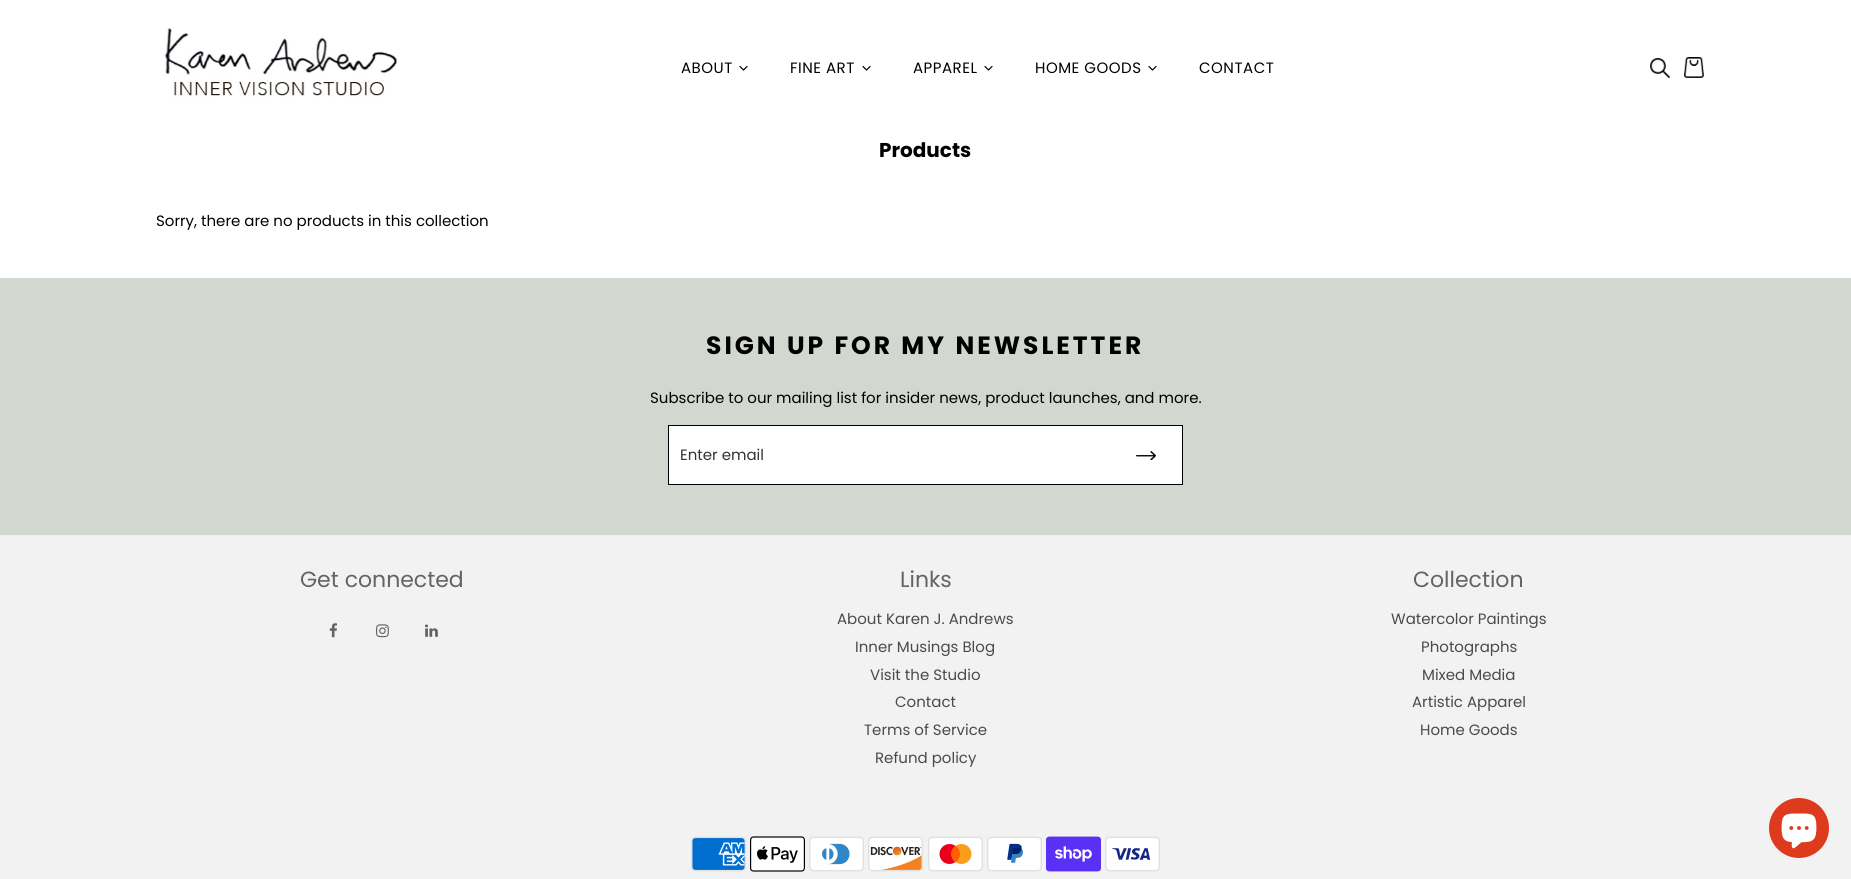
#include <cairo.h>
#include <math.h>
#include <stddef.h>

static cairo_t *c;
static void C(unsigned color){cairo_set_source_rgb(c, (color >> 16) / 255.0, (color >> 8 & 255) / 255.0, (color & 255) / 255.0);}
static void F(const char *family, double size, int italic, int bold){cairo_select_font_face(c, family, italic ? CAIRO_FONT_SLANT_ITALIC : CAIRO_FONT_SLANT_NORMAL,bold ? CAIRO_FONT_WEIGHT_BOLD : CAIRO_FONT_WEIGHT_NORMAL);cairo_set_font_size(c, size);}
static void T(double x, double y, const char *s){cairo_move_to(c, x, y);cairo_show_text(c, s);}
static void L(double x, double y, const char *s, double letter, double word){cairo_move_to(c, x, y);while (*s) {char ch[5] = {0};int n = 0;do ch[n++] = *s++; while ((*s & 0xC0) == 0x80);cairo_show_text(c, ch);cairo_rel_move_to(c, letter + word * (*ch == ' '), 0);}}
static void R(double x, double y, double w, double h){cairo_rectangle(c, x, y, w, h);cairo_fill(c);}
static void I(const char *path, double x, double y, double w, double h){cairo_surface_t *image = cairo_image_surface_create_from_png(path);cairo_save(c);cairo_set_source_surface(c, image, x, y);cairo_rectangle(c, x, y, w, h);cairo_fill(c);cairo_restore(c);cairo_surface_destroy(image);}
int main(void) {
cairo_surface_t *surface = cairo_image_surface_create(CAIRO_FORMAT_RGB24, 1851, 879);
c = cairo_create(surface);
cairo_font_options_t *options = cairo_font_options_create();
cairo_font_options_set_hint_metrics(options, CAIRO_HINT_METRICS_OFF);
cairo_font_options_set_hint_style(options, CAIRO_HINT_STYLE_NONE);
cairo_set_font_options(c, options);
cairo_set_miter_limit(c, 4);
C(0xffffff);
cairo_paint(c);
I("1.png",164,28,234,70);
F("Poppins",15,0,0);
C(0x000000);
L(681,73,"ABOUT",.5,0);
cairo_new_path(c);
cairo_move_to(c,740,66.5);
cairo_line_to(c,743.5,70);
cairo_line_to(c,747,66.5);
cairo_set_line_width(c,1.2);
cairo_set_line_cap(c,CAIRO_LINE_CAP_ROUND);
cairo_set_line_join(c,CAIRO_LINE_JOIN_ROUND);
cairo_stroke(c);
L(790,73,"FINE ART",.5,0);
cairo_new_path(c);
cairo_move_to(c,863,66.5);
cairo_line_to(c,866.5,70);
cairo_line_to(c,870,66.5);
cairo_stroke(c);
L(913,73,"APPAREL",.5,0);
cairo_new_path(c);
cairo_move_to(c,985,66.5);
cairo_line_to(c,988.5,70);
cairo_line_to(c,992,66.5);
cairo_stroke(c);
L(1035,73,"HOME GOODS",.5,0);
cairo_new_path(c);
cairo_move_to(c,1149,66.5);
cairo_line_to(c,1152.5,70);
cairo_line_to(c,1156,66.5);
cairo_stroke(c);
L(1199,73,"CONTACT",.5,0);
I("2.png",1650,58,20,20);
I("3.png",1684,57,20,21);
F("Poppins",20,0,1);
T(879,157,"Products");
F("Poppins",15,0,0);
T(156,226,"Sorry, there are no products in this collection");
C(0xd2d7cf);
R(0,278,1851,257);
F("Poppins",25,0,1);
C(0x000000);
L(706,354,"SIGN UP FOR MY NEWSLETTER",3,0);
F("Poppins",15,0,0);
T(650,403,"Subscribe to our mailing list for insider news, product launches, and more.");
C(0xffffff);
cairo_rectangle(c,668.5,425.5,514,59);
cairo_fill_preserve(c);
C(0x000000);
cairo_set_line_width(c,1);
cairo_set_line_cap(c,CAIRO_LINE_CAP_BUTT);
cairo_set_line_join(c,CAIRO_LINE_JOIN_MITER);
cairo_stroke(c);
C(0x333333);
T(680,460,"Enter email");
I("4.png",1136,451,20,9);
C(0xf2f2f2);
R(0,535,1851,344);
F("Poppins",22,0,0);
C(0x636363);
T(300,587,"Get connected");
I("5.png",329,623,8,15);
I("6.png",376,624,13,14);
I("7.png",425,624,13,13);
T(900,587,"Links");
F("Poppins",15,0,0);
C(0x4a4a4a);
T(837,624,"About Karen J. Andrews");
T(855,652,"Inner Musings Blog");
T(870,680,"Visit the Studio");
T(895,707,"Contact");
T(864,735,"Terms of Service");
T(875,763,"Refund policy");
F("Poppins",22,0,0);
C(0x636363);
T(1413,587,"Collection");
F("Poppins",15,0,0);
C(0x4a4a4a);
T(1391,624,"Watercolor Paintings");
T(1421,652,"Photographs");
T(1422,680,"Mixed Media");
T(1412,707,"Artistic Apparel");
T(1420,735,"Home Goods");
I("8.png",691,836,55,36);
I("9.png",750,836,55,36);
I("10.png",809,836,55,36);
I("11.png",868,836,55,36);
I("12.png",928,836,55,36);
I("13.png",987,836,55,36);
I("14.png",1046,836,55,36);
I("15.png",1105,836,55,36);
C(0xde3a1e);
cairo_arc(c,1799,828,30,0,2 * M_PI);
cairo_fill(c);
I("16.png",1781,813,36,36);
cairo_surface_write_to_png(surface, "o.png");
cairo_font_options_destroy(options);
cairo_destroy(c);
cairo_surface_destroy(surface);
return 0;
}
